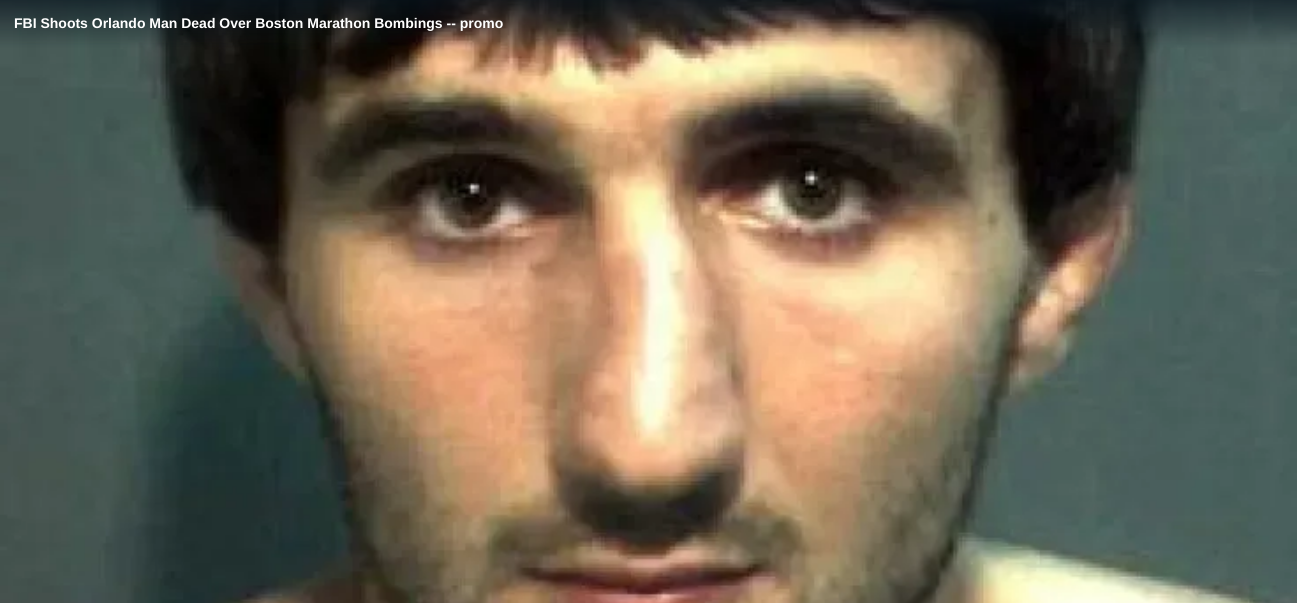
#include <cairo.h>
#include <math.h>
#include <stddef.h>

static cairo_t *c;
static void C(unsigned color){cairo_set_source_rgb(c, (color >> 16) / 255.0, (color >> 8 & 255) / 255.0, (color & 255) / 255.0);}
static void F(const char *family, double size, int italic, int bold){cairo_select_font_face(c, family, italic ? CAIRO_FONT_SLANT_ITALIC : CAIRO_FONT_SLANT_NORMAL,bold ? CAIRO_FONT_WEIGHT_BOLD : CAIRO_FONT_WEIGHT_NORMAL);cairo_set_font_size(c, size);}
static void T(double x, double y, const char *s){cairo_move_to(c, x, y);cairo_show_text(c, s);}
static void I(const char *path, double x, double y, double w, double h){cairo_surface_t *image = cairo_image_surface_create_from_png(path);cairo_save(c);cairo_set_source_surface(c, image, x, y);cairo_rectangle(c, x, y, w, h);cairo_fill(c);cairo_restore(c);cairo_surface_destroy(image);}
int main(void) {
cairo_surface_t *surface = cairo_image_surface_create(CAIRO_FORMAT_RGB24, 1297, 603);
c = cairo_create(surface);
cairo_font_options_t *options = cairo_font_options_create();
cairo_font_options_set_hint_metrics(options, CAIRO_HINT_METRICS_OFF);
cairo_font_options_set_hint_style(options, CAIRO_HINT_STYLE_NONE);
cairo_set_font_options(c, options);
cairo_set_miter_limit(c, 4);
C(0xffffff);
cairo_paint(c);
I("1.png",0,0,1297,603);
F("Liberation Sans",14,0,1);
C(0xffffff);
T(14,28,"FBI Shoots Orlando Man Dead Over Boston Marathon Bombings -- promo");
cairo_surface_write_to_png(surface, "o.png");
cairo_font_options_destroy(options);
cairo_destroy(c);
cairo_surface_destroy(surface);
return 0;
}
